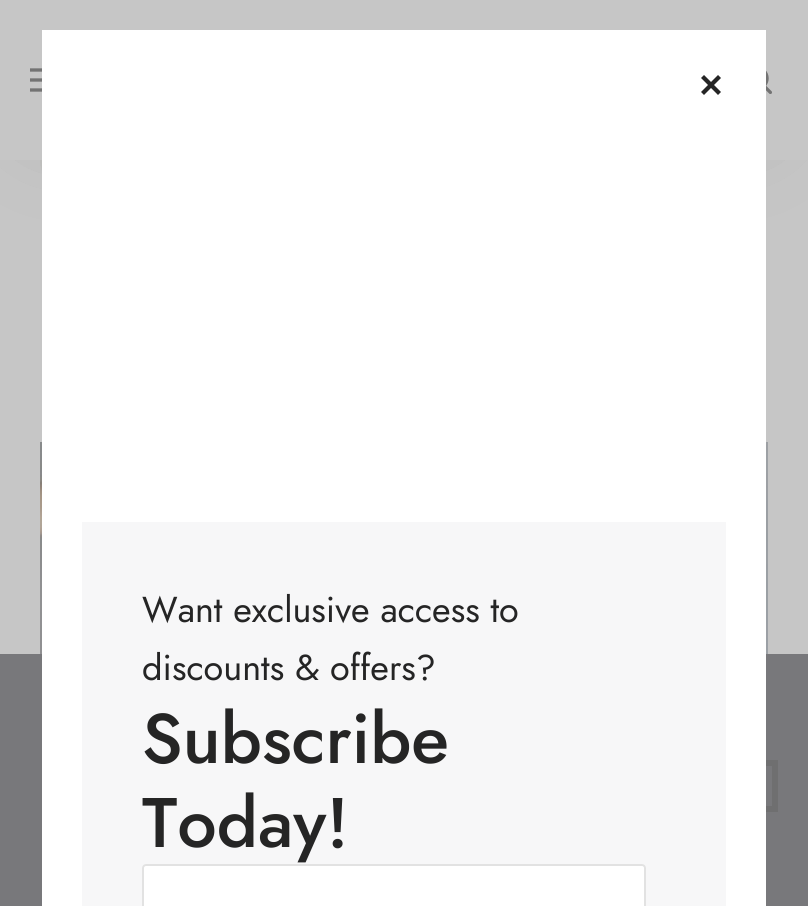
#include <cairo.h>
#include <math.h>
#include <stddef.h>

static cairo_t *c;
static void C(unsigned color){cairo_set_source_rgb(c, (color >> 16) / 255.0, (color >> 8 & 255) / 255.0, (color & 255) / 255.0);}
static void F(const char *family, double size, int italic, int bold){cairo_select_font_face(c, family, italic ? CAIRO_FONT_SLANT_ITALIC : CAIRO_FONT_SLANT_NORMAL,bold ? CAIRO_FONT_WEIGHT_BOLD : CAIRO_FONT_WEIGHT_NORMAL);cairo_set_font_size(c, size);}
static void T(double x, double y, const char *s){cairo_move_to(c, x, y);cairo_show_text(c, s);}
static void R(double x, double y, double w, double h){cairo_rectangle(c, x, y, w, h);cairo_fill(c);}
static void Q(double x, double y, double w, double h, double r){cairo_new_sub_path(c);cairo_arc(c, x + w - r, y + h - r, r, 0, M_PI / 2);cairo_arc(c, x + r, y + h - r, r, M_PI / 2, M_PI);cairo_arc(c, x + r, y + r, r, M_PI, 1.5 * M_PI);cairo_arc(c, x + w - r, y + r, r, 1.5 * M_PI, 2 * M_PI);cairo_close_path(c);}
static void S(double x, double y, double w, double h, double r, double blur, double alpha){cairo_push_group_with_content(c, CAIRO_CONTENT_ALPHA);cairo_set_operator(c, CAIRO_OPERATOR_SOURCE);for (int i = 15; i >= -15 && fmin(w, h) + blur * i / 3 > 0; i -= 2) {double e = blur * i / 6;cairo_set_source_rgba(c, 0, 0, 0, alpha * erfc((i - 1) / 8.5) / 2);Q(x - e, y - e, w + 2 * e, h + 2 * e, fmax(0, fmin(r + e + blur * .6, fmin(w, h) / 2 + e)));cairo_fill(c);}cairo_pattern_t *soft = cairo_pop_group(c);cairo_mask(c, soft);cairo_pattern_destroy(soft);}
static void I(const char *path, double x, double y, double w, double h){cairo_surface_t *image = cairo_image_surface_create_from_png(path);cairo_save(c);cairo_set_source_surface(c, image, x, y);cairo_rectangle(c, x, y, w, h);cairo_fill(c);cairo_restore(c);cairo_surface_destroy(image);}
int main(void) {
cairo_surface_t *surface = cairo_image_surface_create(CAIRO_FORMAT_RGB24, 808, 906);
c = cairo_create(surface);
cairo_font_options_t *options = cairo_font_options_create();
cairo_font_options_set_hint_metrics(options, CAIRO_HINT_METRICS_OFF);
cairo_font_options_set_hint_style(options, CAIRO_HINT_STYLE_NONE);
cairo_set_font_options(c, options);
cairo_set_miter_limit(c, 4);
C(0xc6c6c6);
cairo_paint(c);
C(0xc2c2c0);
cairo_arc(c,67,161,27,0,2 * M_PI);
cairo_fill(c);
C(0x656565);
S(36,44,728,80,0,45,.3);
C(0xc6c6c6);
R(0,0,808,160);
cairo_save(c);
cairo_rectangle(c,30,60,40,40);
cairo_clip(c);
cairo_new_path(c);
cairo_move_to(c,30,80);
cairo_line_to(c,65,80);
cairo_move_to(c,30,70);
cairo_line_to(c,65,70);
cairo_move_to(c,30,90);
cairo_line_to(c,65,90);
C(0x737373);
cairo_set_line_width(c,3.3);
cairo_set_line_cap(c,CAIRO_LINE_CAP_ROUND);
cairo_set_line_join(c,CAIRO_LINE_JOIN_ROUND);
cairo_stroke(c);
cairo_restore(c);
I("1.png",766,70,6,24);
I("2.png",40,442,2,212);
I("3.png",766,442,2,212);
C(0x78787b);
R(0,654,808,252);
cairo_rectangle(c,729,763,46,46);
C(0x6f6f70);
cairo_set_line_width(c,6);
cairo_stroke(c);
C(0xffffff);
R(42,30,724,876);
C(0x252525);
cairo_new_path(c);
cairo_move_to(c,704,75);
cairo_line_to(c,721,92);
cairo_line_to(c,718,95);
cairo_line_to(c,701,78);
cairo_close_path(c);
cairo_fill(c);
cairo_new_path(c);
cairo_move_to(c,701,92);
cairo_line_to(c,718,75);
cairo_line_to(c,721,78);
cairo_line_to(c,704,95);
cairo_close_path(c);
cairo_fill(c);
C(0xf7f7f8);
R(82,522,644,384);
F("Jost",36,0,0);
C(0x252525);
T(142,622,"Want exclusive access to");
T(142,680,"discounts & offers?");
F("Jost Medium",70,0,0);
T(142,763,"Subscribe");
T(142,847,"Today!");
C(0xffffff);
cairo_new_path(c);
cairo_move_to(c,146,864);
cairo_line_to(c,642,864);
cairo_curve_to(c,644,864,646,866,646,868);
cairo_line_to(c,646,906);
cairo_line_to(c,142,906);
cairo_line_to(c,142,868);
cairo_curve_to(c,142,866,144,864,146,864);
cairo_close_path(c);
cairo_fill(c);
Q(143,865,502,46,3);
C(0xe2e2e2);
cairo_set_line_width(c,2);
cairo_stroke(c);
cairo_surface_write_to_png(surface, "o.png");
cairo_font_options_destroy(options);
cairo_destroy(c);
cairo_surface_destroy(surface);
return 0;
}
